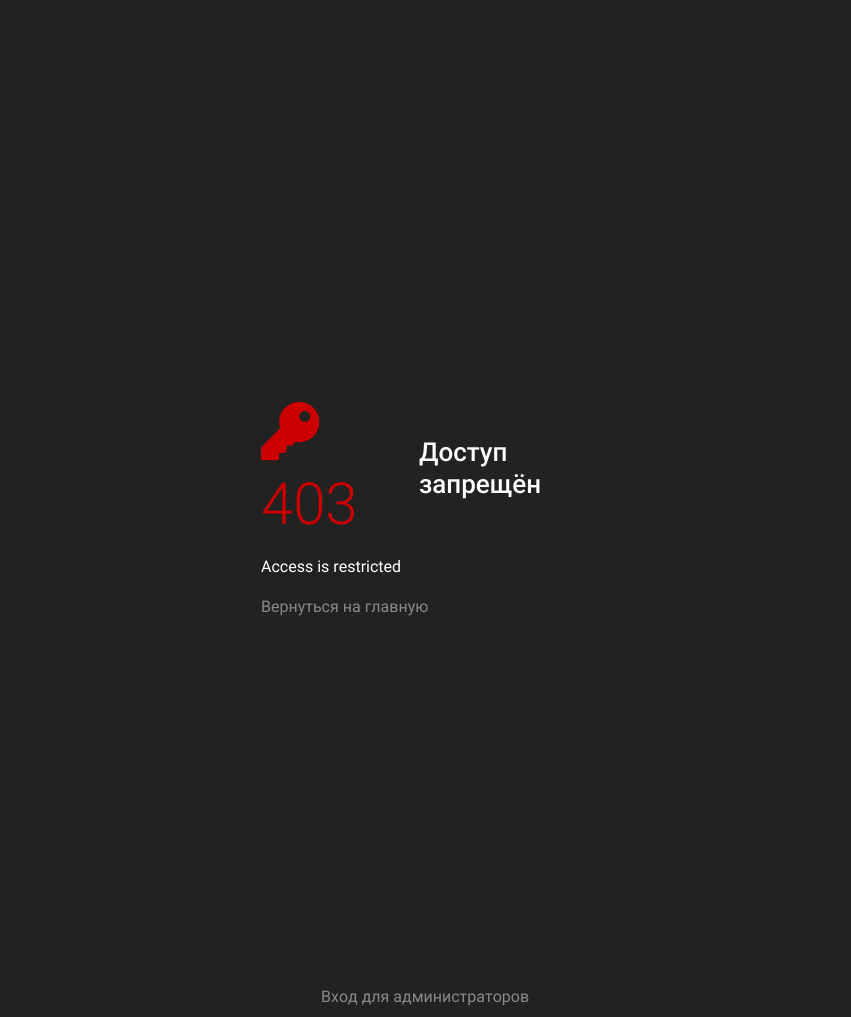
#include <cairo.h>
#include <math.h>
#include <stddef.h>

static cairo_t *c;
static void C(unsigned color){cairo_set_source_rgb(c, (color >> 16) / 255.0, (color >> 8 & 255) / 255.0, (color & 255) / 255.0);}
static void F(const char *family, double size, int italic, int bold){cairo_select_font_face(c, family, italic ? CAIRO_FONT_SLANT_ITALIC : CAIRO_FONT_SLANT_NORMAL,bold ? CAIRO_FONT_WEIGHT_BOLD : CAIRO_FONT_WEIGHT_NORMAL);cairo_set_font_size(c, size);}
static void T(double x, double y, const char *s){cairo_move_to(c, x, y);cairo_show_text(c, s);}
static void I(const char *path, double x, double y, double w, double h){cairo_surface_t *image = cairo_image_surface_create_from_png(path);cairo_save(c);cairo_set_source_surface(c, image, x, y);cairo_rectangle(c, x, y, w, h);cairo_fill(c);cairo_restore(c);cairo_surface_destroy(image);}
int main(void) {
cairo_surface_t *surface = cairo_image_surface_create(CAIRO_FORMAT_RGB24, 851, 1017);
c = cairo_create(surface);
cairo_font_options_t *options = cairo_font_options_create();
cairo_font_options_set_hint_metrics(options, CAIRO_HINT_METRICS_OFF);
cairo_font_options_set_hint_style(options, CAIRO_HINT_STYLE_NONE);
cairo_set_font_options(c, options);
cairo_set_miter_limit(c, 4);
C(0x222222);
cairo_paint(c);
I("1.png",261,402,59,59);
F("Roboto Light",58,0,0);
C(0xcc0000);
T(261,524,"403");
F("Roboto Medium",26,0,0);
C(0xffffff);
T(419,461,"Доступ");
T(419,493,"запрещён");
F("Roboto",16,0,0);
T(261,572,"Access is restricted");
C(0x888888);
T(261,612,"Вернуться на главную");
T(321,1002,"Вход для администраторов");
cairo_surface_write_to_png(surface, "o.png");
cairo_font_options_destroy(options);
cairo_destroy(c);
cairo_surface_destroy(surface);
return 0;
}
